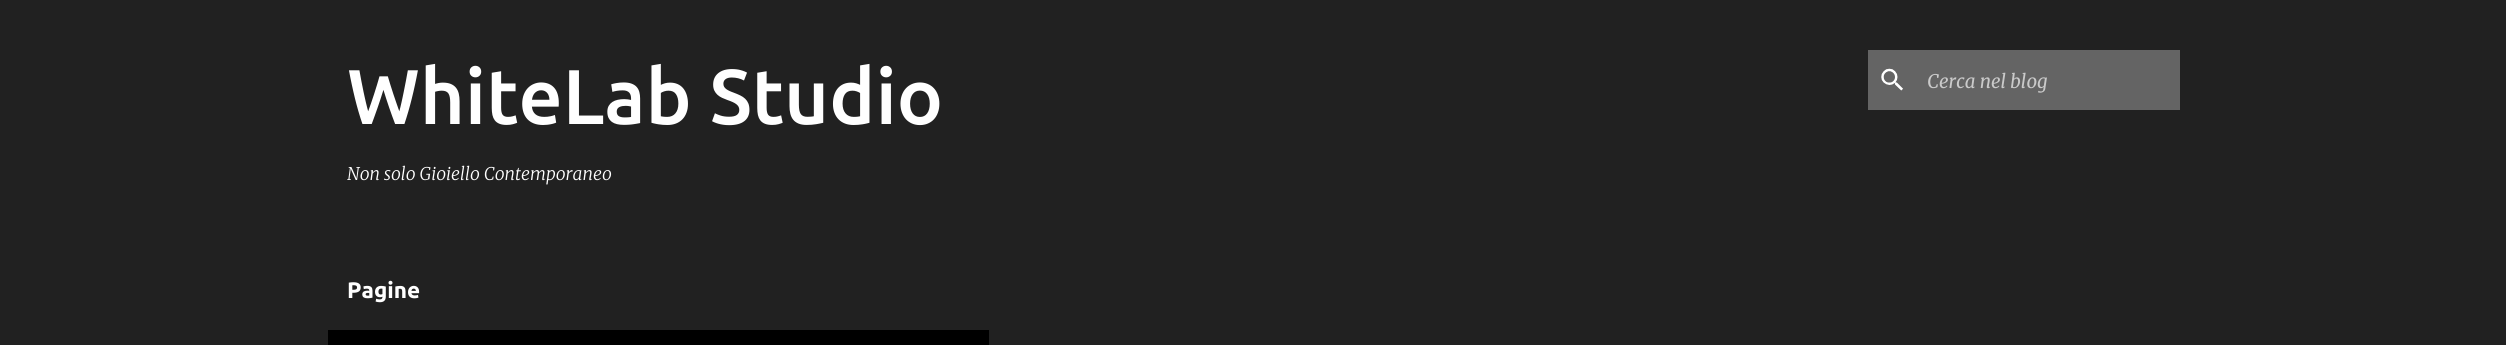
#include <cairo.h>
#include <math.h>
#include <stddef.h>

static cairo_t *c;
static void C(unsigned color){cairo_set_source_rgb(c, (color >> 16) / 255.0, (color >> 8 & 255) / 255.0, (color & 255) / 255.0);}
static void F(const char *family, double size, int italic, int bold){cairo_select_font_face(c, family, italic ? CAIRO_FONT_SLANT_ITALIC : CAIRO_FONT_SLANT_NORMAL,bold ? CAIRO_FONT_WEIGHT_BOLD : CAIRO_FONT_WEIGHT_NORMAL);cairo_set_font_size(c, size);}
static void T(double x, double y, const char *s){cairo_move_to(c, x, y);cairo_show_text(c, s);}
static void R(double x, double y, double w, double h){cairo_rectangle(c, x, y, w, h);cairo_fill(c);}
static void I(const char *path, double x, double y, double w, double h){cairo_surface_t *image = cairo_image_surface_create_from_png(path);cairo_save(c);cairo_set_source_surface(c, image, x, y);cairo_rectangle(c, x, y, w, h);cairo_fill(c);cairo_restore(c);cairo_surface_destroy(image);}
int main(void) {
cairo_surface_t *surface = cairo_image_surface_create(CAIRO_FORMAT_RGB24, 2506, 345);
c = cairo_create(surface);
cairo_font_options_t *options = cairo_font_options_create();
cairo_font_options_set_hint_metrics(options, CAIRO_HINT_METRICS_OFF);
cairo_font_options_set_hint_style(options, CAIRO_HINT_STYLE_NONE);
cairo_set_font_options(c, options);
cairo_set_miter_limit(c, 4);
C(0x212121);
cairo_paint(c);
F("Ubuntu Medium",77.5,0,0);
C(0xffffff);
T(347,124,"WhiteLab Studio");
F("Merriweather Light",17.5,1,0);
T(347,180,"Non solo Gioiello Contemporaneo");
C(0x646464);
R(1868,50,312,60);
I("1.png",1881,68,22,23);
F("Merriweather",18.75,1,0);
C(0xcacaca);
T(1927,88,"Cerca nel blog");
F("Ubuntu",22.5,0,1);
C(0xffffff);
T(347,298,"Pagine");
C(0x000000);
R(328,330,661,15);
cairo_surface_write_to_png(surface, "o.png");
cairo_font_options_destroy(options);
cairo_destroy(c);
cairo_surface_destroy(surface);
return 0;
}
